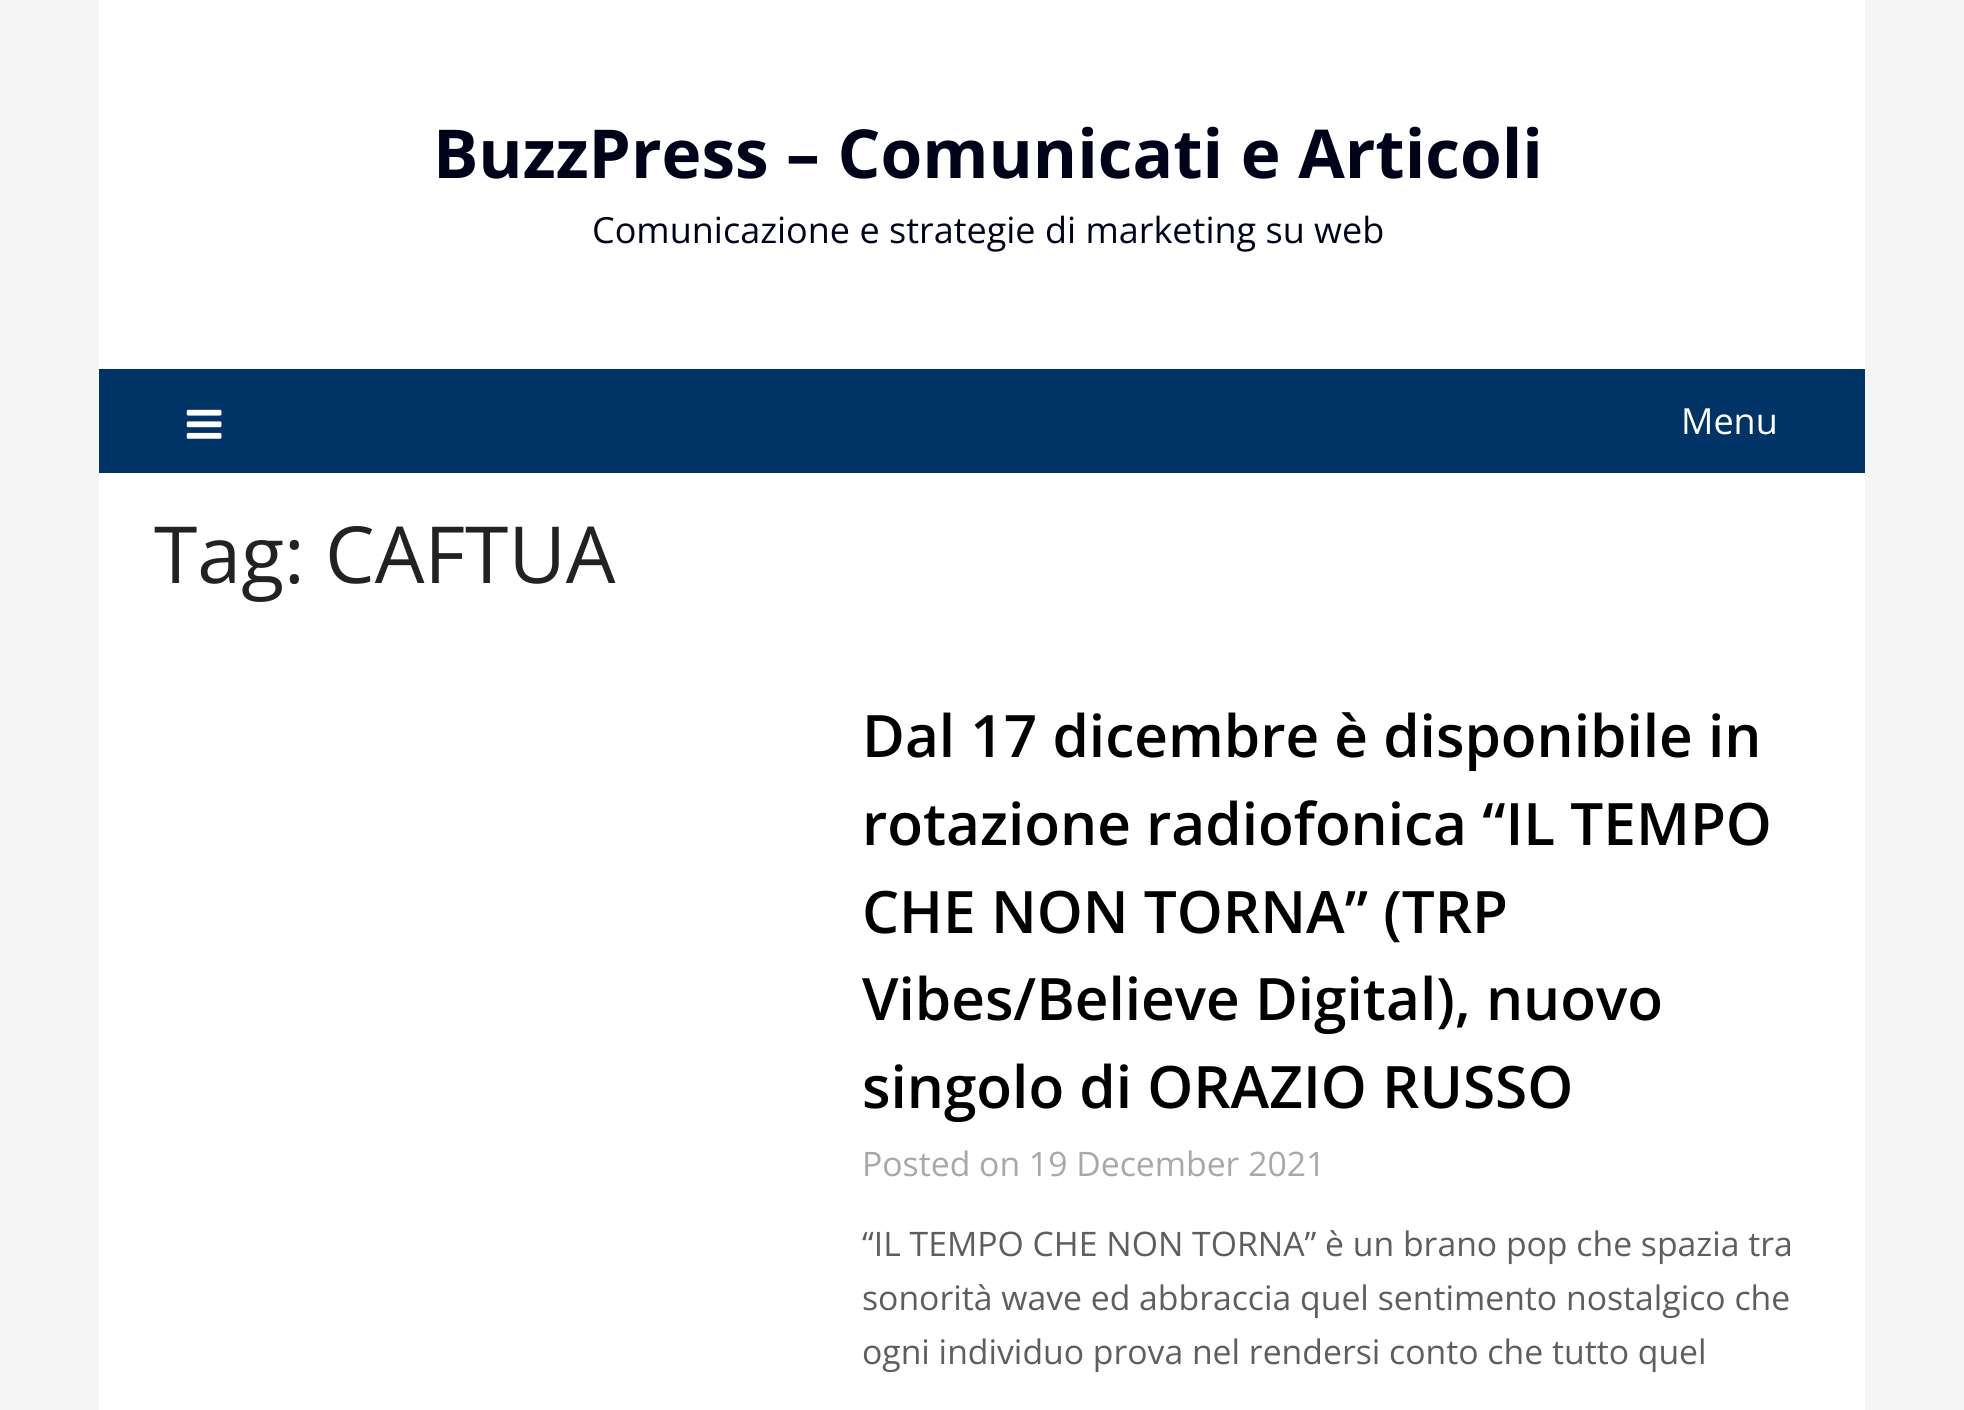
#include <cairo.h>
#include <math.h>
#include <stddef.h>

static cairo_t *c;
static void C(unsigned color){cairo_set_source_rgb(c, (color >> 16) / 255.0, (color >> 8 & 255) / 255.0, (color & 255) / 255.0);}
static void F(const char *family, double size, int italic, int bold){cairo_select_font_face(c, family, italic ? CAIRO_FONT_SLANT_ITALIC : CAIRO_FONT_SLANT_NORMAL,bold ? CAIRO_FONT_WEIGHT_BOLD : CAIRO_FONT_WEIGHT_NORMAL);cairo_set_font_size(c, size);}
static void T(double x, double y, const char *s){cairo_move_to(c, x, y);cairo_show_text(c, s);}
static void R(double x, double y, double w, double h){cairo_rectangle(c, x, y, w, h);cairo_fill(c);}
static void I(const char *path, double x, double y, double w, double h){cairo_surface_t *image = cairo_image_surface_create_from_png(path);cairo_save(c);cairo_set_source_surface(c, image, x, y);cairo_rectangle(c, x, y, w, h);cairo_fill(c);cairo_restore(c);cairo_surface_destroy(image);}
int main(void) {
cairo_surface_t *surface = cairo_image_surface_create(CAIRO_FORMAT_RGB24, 1964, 1410);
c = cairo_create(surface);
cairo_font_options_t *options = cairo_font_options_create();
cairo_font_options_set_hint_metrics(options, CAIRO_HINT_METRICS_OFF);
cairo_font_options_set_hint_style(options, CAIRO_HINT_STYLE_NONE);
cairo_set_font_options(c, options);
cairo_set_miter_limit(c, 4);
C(0xf5f5f5);
cairo_paint(c);
C(0xffffff);
R(99,0,1766,369);
F("Open Sans",67.5,0,1);
C(0x00021a);
T(433,178,"BuzzPress – Comunicati e Articoli");
F("Open Sans",36,0,0);
T(592,243,"Comunicazione e strategie di marketing su web");
C(0x003366);
R(99,369,1766,104);
I("1.png",186,409,36,30);
C(0xffffff);
T(1681,434,"Menu");
R(99,473,1766,937);
F("Open Sans",78.75,0,0);
C(0x222222);
T(154,583,"Tag: CAFTUA");
F("Open Sans SemiBold",58.5,0,0);
C(0x000000);
T(862,757,"Dal 17 dicembre è disponibile in");
T(862,845,"rotazione radiofonica “IL TEMPO");
T(862,933,"CHE NON TORNA” (TRP");
T(862,1020,"Vibes/Believe Digital), nuovo");
T(862,1108,"singolo di ORAZIO RUSSO");
F("Open Sans",33.75,0,0);
C(0xa8a8a8);
T(862,1176,"Posted on 19 December 2021");
C(0x5e5e5e);
T(862,1256,"“IL TEMPO CHE NON TORNA” è un brano pop che spazia tra");
T(862,1310,"sonorità wave ed abbraccia quel sentimento nostalgico che");
T(862,1364,"ogni individuo prova nel rendersi conto che tutto quel");
cairo_surface_write_to_png(surface, "o.png");
cairo_font_options_destroy(options);
cairo_destroy(c);
cairo_surface_destroy(surface);
return 0;
}
